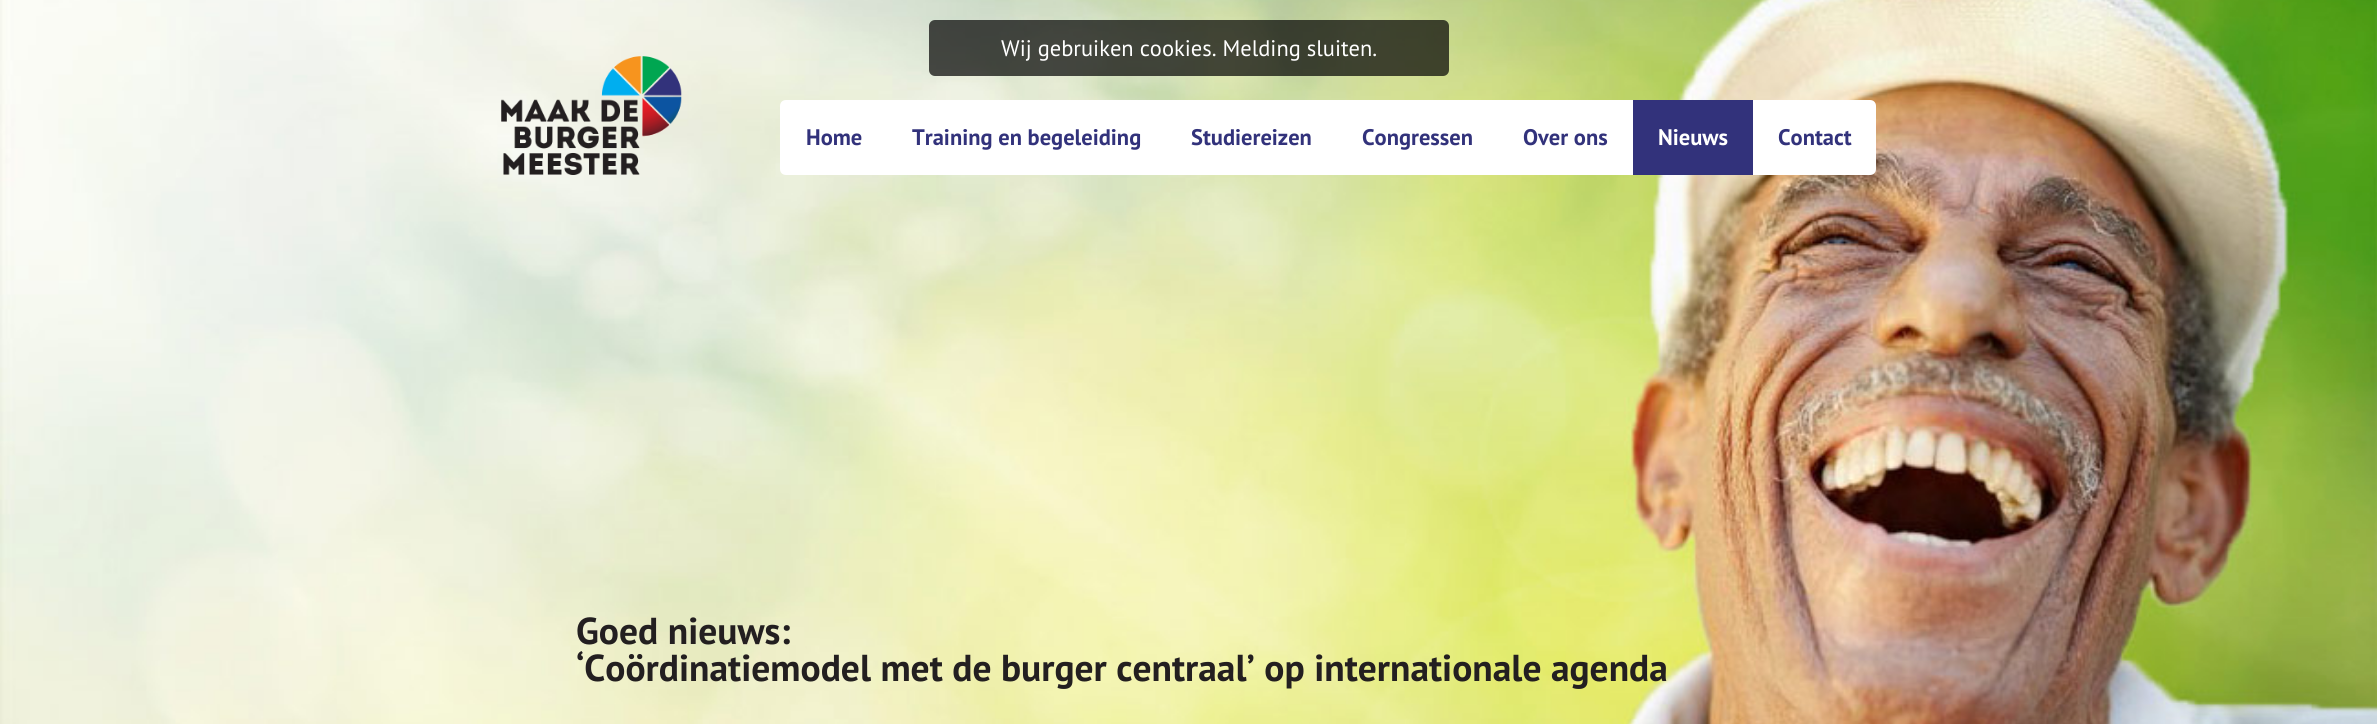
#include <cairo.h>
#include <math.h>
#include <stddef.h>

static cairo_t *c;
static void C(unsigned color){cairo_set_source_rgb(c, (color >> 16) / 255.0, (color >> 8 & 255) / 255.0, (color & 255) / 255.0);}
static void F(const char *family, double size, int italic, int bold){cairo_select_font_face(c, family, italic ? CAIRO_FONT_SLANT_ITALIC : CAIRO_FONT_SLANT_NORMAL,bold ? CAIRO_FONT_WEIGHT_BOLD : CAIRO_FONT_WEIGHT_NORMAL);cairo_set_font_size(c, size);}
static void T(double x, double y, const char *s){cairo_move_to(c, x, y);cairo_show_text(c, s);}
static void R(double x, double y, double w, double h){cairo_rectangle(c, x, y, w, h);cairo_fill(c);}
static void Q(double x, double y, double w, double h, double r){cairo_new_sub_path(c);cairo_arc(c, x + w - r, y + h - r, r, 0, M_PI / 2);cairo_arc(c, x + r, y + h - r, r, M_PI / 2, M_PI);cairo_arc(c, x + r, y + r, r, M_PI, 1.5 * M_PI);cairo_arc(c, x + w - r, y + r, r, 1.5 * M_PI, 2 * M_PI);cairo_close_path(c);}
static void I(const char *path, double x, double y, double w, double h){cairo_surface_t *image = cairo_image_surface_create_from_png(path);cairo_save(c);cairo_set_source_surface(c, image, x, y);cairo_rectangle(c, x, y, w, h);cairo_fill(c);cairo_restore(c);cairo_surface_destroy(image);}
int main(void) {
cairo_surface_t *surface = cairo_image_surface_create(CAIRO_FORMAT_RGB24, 2377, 724);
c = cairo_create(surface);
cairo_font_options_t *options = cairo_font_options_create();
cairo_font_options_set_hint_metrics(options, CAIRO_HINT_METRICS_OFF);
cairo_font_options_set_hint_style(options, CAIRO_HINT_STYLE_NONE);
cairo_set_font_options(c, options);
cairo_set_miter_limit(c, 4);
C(0xffffff);
cairo_paint(c);
I("1.png",0,0,2377,724);
cairo_set_source_rgba(c,0,0,0,0.7);
Q(929,20,520,56,6);
cairo_fill(c);
F("PT Sans",22.5,0,0);
C(0xffffff);
T(1001,56,"Wij gebruiken cookies. Melding sluiten.");
I("2.png",501,56,181,119);
cairo_new_path(c);
cairo_move_to(c,786,100);
cairo_line_to(c,888,100);
cairo_line_to(c,888,175);
cairo_line_to(c,786,175);
cairo_curve_to(c,782.5,175,780,172.5,780,169);
cairo_line_to(c,780,106);
cairo_curve_to(c,780,102.5,782.5,100,786,100);
cairo_close_path(c);
cairo_fill(c);
F("PT Sans",22.5,0,1);
C(0x32327b);
T(806,145,"Home");
C(0xffffff);
R(888,100,745,75);
C(0x32327b);
T(912,145,"Training en begeleiding");
T(1191,145,"Studiereizen");
T(1362,145,"Congressen");
T(1523,145,"Over ons");
R(1633,100,120,75);
C(0xffffff);
T(1658,145,"Nieuws");
cairo_new_path(c);
cairo_move_to(c,1753,100);
cairo_line_to(c,1870,100);
cairo_curve_to(c,1873.5,100,1876,102.5,1876,106);
cairo_line_to(c,1876,169);
cairo_curve_to(c,1876,172.5,1873.5,175,1870,175);
cairo_line_to(c,1753,175);
cairo_close_path(c);
cairo_fill(c);
C(0x32327b);
T(1778,145,"Contact");
F("PT Sans",37.5,0,1);
C(0x231f20);
T(576,644,"Goed nieuws:");
T(576,681,"‘Coördinatiemodel met de burger centraal’ op internationale agenda");
cairo_surface_write_to_png(surface, "o.png");
cairo_font_options_destroy(options);
cairo_destroy(c);
cairo_surface_destroy(surface);
return 0;
}
